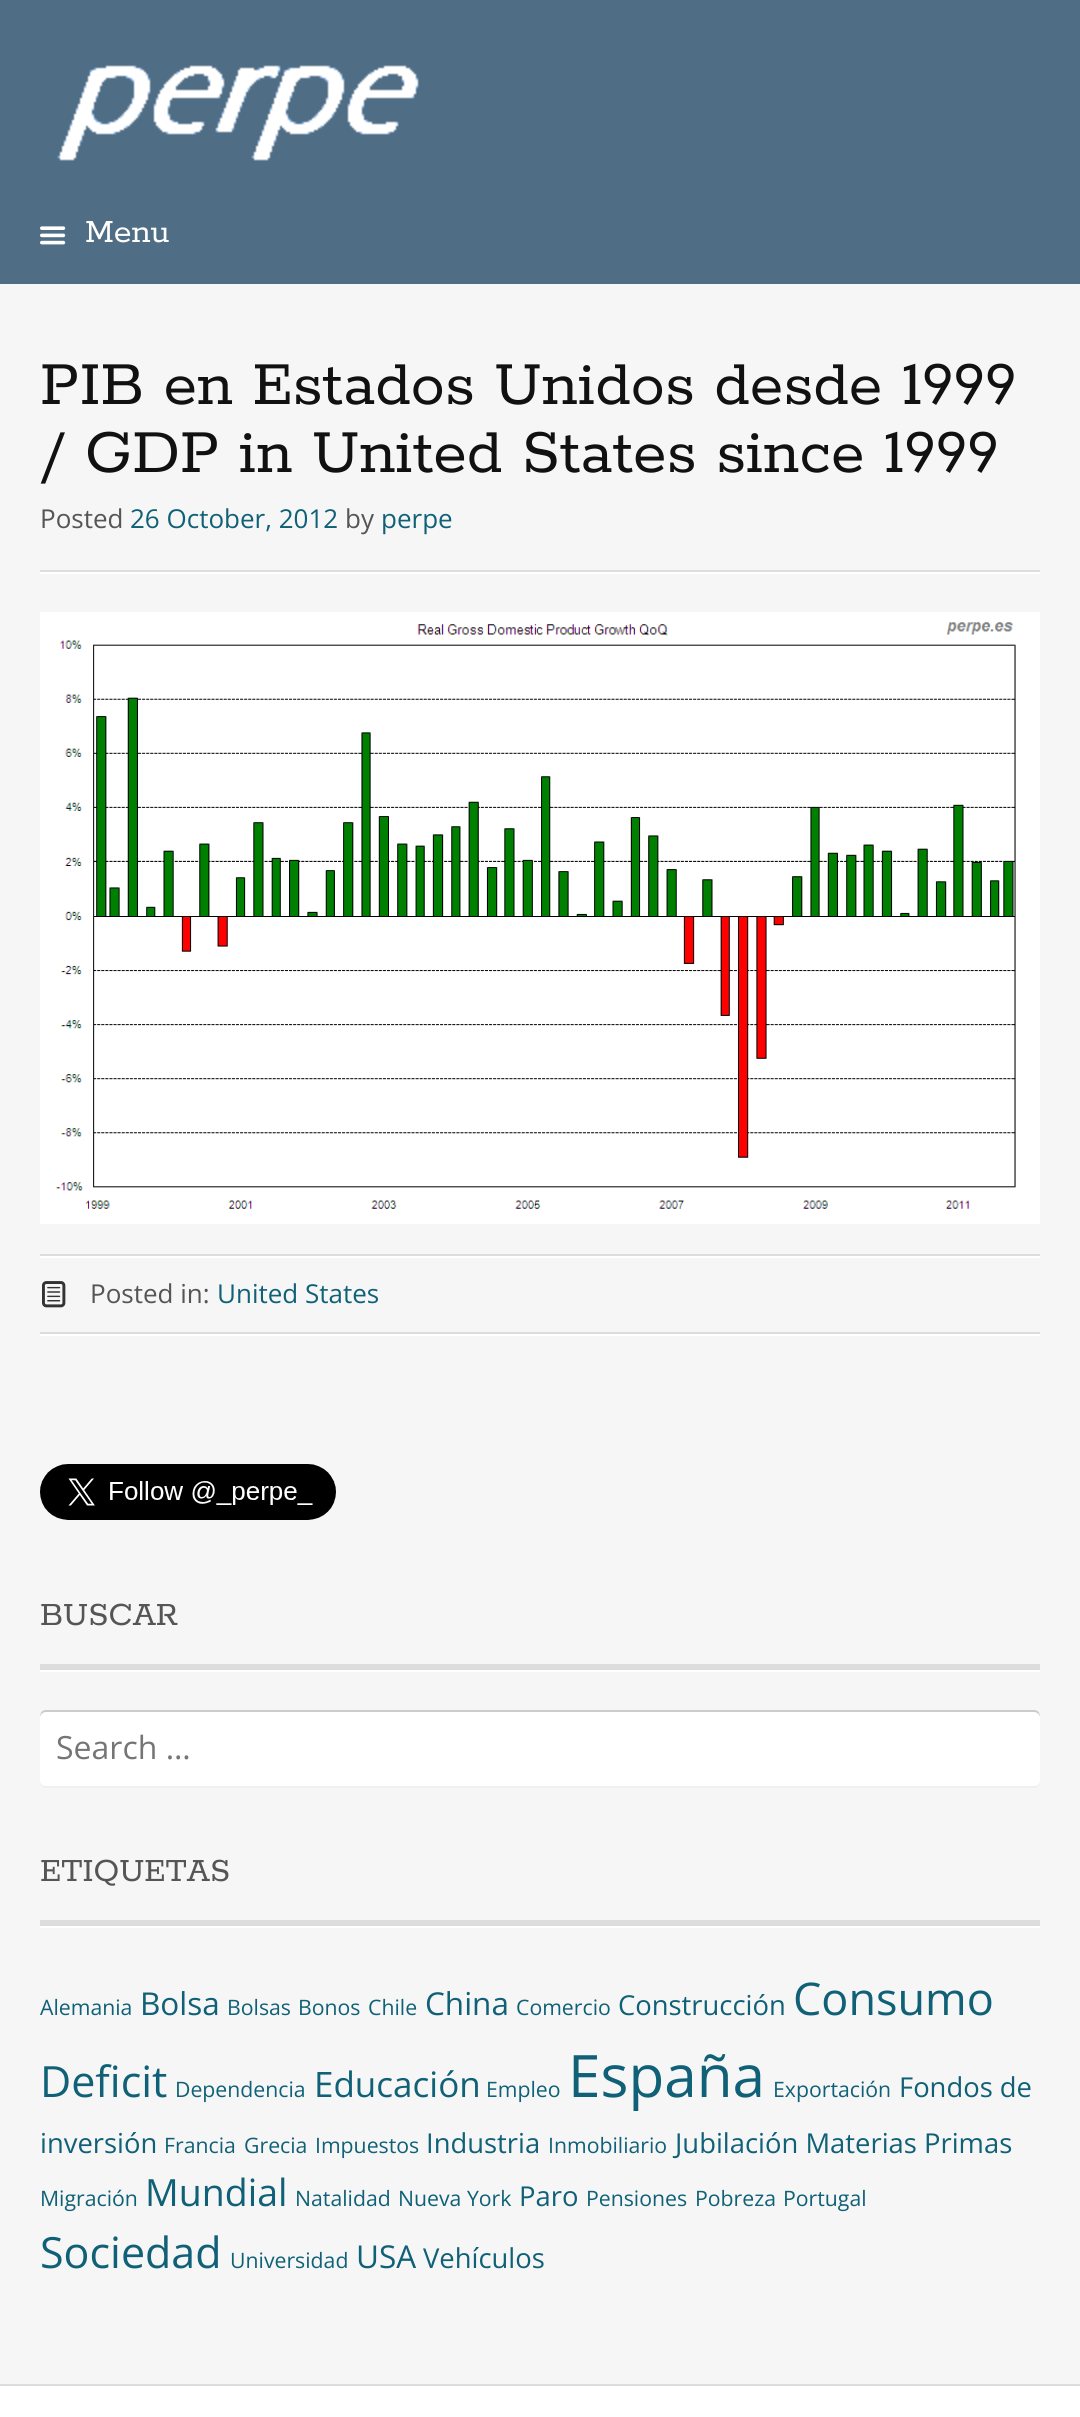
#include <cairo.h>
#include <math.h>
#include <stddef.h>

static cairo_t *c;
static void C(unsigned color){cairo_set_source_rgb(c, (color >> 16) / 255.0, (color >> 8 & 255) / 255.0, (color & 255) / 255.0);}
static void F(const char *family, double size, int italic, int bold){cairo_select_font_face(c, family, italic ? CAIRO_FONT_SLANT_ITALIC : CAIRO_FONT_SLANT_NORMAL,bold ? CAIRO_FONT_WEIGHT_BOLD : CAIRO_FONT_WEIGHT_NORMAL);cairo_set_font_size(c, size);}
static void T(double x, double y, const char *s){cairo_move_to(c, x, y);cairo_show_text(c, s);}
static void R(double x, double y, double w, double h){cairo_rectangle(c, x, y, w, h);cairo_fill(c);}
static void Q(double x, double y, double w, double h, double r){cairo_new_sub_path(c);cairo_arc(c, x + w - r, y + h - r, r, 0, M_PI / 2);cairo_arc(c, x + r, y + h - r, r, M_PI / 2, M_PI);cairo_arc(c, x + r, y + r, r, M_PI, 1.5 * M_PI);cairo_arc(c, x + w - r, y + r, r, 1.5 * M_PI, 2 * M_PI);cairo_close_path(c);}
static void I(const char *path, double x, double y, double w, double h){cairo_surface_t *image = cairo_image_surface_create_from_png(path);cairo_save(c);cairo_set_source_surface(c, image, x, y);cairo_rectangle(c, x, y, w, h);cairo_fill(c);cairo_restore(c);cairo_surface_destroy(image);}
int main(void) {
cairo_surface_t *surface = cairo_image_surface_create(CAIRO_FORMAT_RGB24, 1080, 2417);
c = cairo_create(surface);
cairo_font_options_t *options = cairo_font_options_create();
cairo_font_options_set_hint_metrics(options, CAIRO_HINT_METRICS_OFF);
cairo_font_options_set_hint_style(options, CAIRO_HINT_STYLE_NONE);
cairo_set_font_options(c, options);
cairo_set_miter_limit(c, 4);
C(0xf6f6f6);
cairo_paint(c);
C(0x4f6e86);
R(0,0,1080,284);
I("1.png",57,65,362,96);
I("2.png",40,226,26,19);
F("Rokkitt",36,0,0);
C(0xffffff);
T(85,242,"Menu");
R(40,572,1000,2);
C(0xdddddd);
R(40,570,1000,2);
F("Rokkitt",68,0,0);
C(0x111111);
T(40,404,"PIB en Estados Unidos desde 1999");
T(40,472,"/ GDP in United States since 1999");
F("Open Sans",26,0,0);
C(0x555555);
T(40,528,"Posted");
C(0x106177);
T(130,528,"26 October, 2012");
C(0x555555);
T(345,528,"by");
C(0x106177);
T(381,528,"perpe");
I("3.png",40,612,1000,612);
C(0xffffff);
R(40,1256,1000,2);
C(0xdddddd);
R(40,1254,1000,2);
I("4.png",42,1281,24,27);
C(0x555555);
T(90,1303,"Posted in:");
C(0x106177);
T(217,1303,"United States");
C(0xffffff);
R(40,1334,1000,2);
C(0xdddddd);
R(40,1332,1000,2);
I("5.png",40,1464,296,56);
C(0xffffff);
R(40,1670,1000,2);
C(0xdddddd);
R(40,1664,1000,6);
F("Rokkitt",36,0,0);
C(0x555555);
T(40,1625,"BUSCAR");
C(0xf0f0f0);
cairo_new_path(c);
cairo_move_to(c,40,1780);
cairo_curve_to(c,40,1784,41,1788,46,1788);
cairo_line_to(c,1034,1788);
cairo_curve_to(c,1039,1788,1040,1784,1040,1780);
cairo_curve_to(c,1040,1783,1037,1786,1034,1786);
cairo_line_to(c,46,1786);
cairo_curve_to(c,43,1786,40,1783,40,1780);
cairo_close_path(c);
cairo_fill(c);
C(0xffffff);
Q(40,1710,1000,76,6);
cairo_fill(c);
cairo_set_source_rgba(c,0,0,0,0.2);
cairo_new_path(c);
cairo_move_to(c,46,1712);
cairo_line_to(c,1034,1712);
cairo_curve_to(c,1037,1712,1040,1715,1040,1718);
cairo_curve_to(c,1040,1714,1039,1710,1034,1710);
cairo_line_to(c,46,1710);
cairo_curve_to(c,41,1710,40,1714,40,1718);
cairo_curve_to(c,40,1715,43,1712,46,1712);
cairo_close_path(c);
cairo_fill(c);
F("Open Sans",32,0,0);
C(0x757575);
T(56,1759,"Search …");
C(0xffffff);
R(40,1926,1000,2);
C(0xdddddd);
R(40,1920,1000,6);
F("Rokkitt",36,0,0);
C(0x555555);
T(40,1881,"ETIQUETAS");
F("Open Sans",21.25,0,0);
C(0x106177);
T(40,2015,"Alemania");
F("Open Sans",31.5,0,0);
T(140,2015,"Bolsa");
F("Open Sans",21.25,0,0);
T(227,2015,"Bolsas");
T(298,2015,"Bonos");
T(368,2015,"Chile");
F("Open Sans",31.5,0,0);
T(425,2015,"China");
F("Open Sans",21.25,0,0);
T(516,2015,"Comercio");
F("Open Sans",27.4,0,0);
T(618,2015,"Construcción");
F("Open Sans",45,0,0);
T(793,2015,"Consumo");
F("Open Sans",43,0,0);
T(40,2097,"Deficit");
F("Open Sans",21.25,0,0);
T(175,2097,"Dependencia");
F("Open Sans",35,0,0);
T(314,2097,"Educación");
F("Open Sans",21.25,0,0);
T(486,2097,"Empleo");
F("Open Sans",58.5,0,0);
T(568,2097,"España");
F("Open Sans",21.25,0,0);
T(773,2097,"Exportación");
F("Open Sans",27.4,0,0);
T(899,2097,"Fondos de");
T(40,2153,"inversión");
F("Open Sans",21.25,0,0);
T(164,2153,"Francia");
T(244,2153,"Grecia");
T(315,2153,"Impuestos");
F("Open Sans",27.4,0,0);
T(426,2153,"Industria");
F("Open Sans",21.25,0,0);
T(548,2153,"Inmobiliario");
F("Open Sans",27.4,0,0);
T(675,2153,"Jubilación Materias Primas");
F("Open Sans",21.25,0,0);
T(40,2206,"Migración");
F("Open Sans",37.5,0,0);
T(145,2206,"Mundial");
F("Open Sans",21.25,0,0);
T(295,2206,"Natalidad");
T(398,2206,"Nueva York");
F("Open Sans",27.4,0,0);
T(519,2206,"Paro");
F("Open Sans",21.25,0,0);
T(586,2206,"Pensiones");
T(695,2206,"Pobreza");
T(783,2206,"Portugal");
F("Open Sans",43,0,0);
T(40,2268,"Sociedad");
F("Open Sans",21.25,0,0);
T(230,2268,"Universidad");
F("Open Sans",31.5,0,0);
T(356,2268,"USA");
F("Open Sans",27.4,0,0);
T(423,2268,"Vehículos");
C(0xffffff);
R(0,2386,1080,31);
C(0xdddddd);
R(0,2384,1080,2);
cairo_surface_write_to_png(surface, "o.png");
cairo_font_options_destroy(options);
cairo_destroy(c);
cairo_surface_destroy(surface);
return 0;
}
